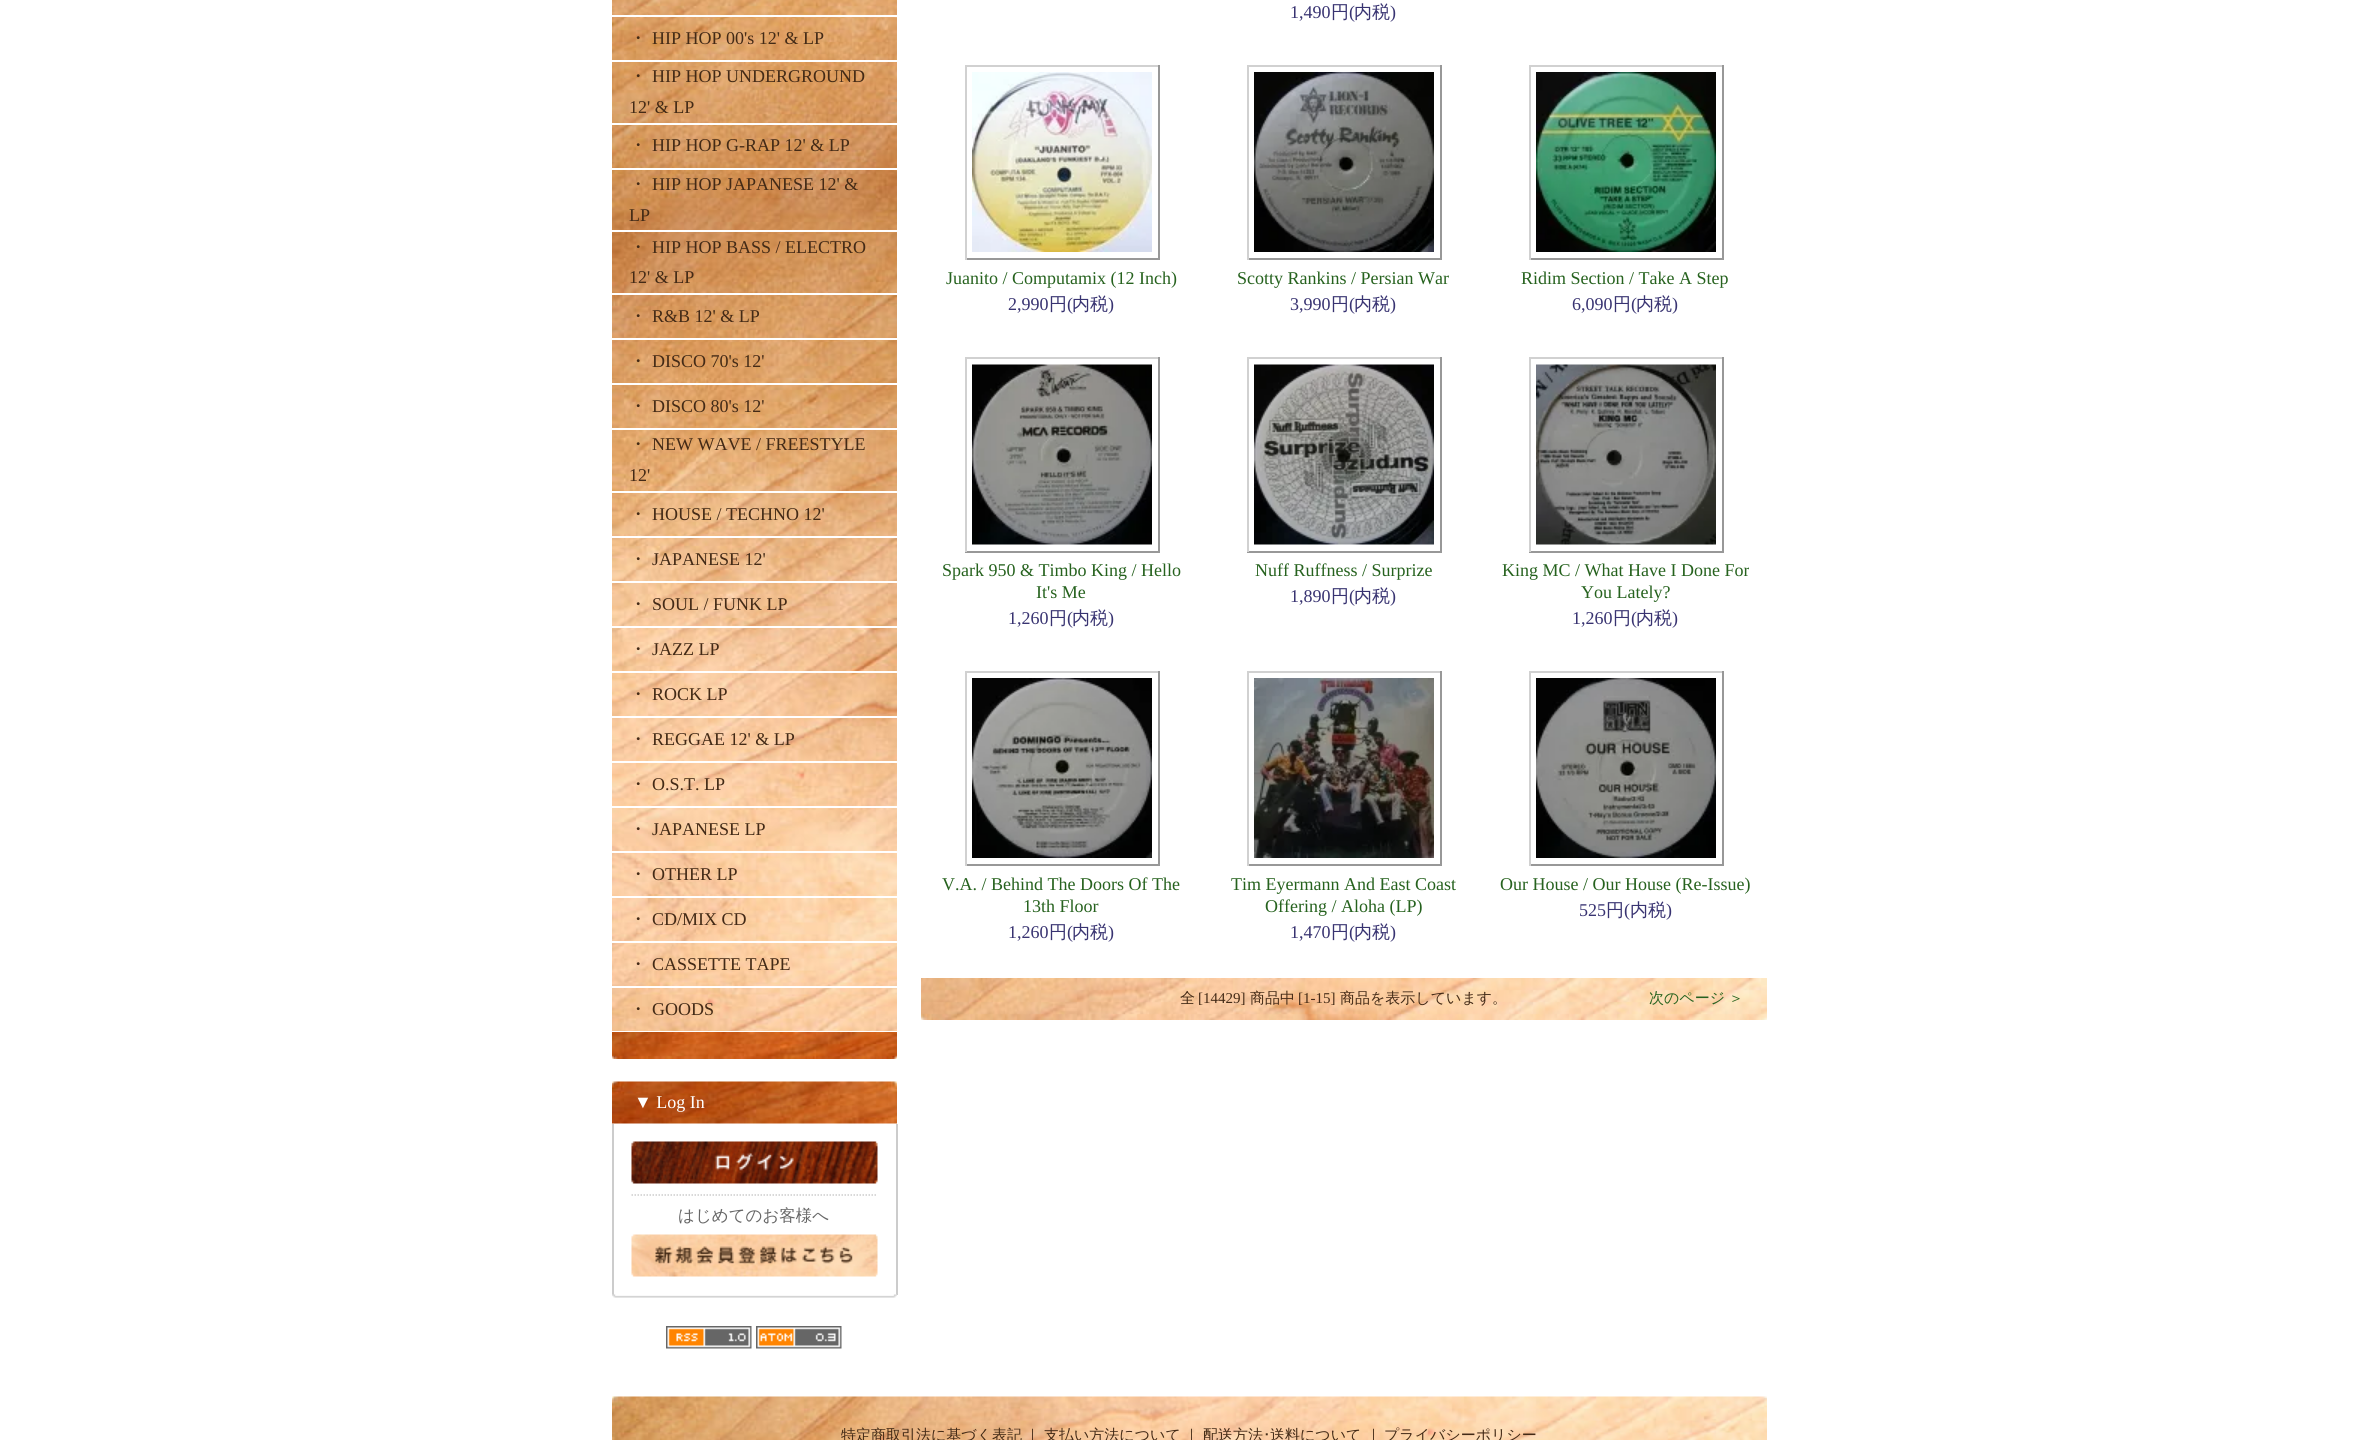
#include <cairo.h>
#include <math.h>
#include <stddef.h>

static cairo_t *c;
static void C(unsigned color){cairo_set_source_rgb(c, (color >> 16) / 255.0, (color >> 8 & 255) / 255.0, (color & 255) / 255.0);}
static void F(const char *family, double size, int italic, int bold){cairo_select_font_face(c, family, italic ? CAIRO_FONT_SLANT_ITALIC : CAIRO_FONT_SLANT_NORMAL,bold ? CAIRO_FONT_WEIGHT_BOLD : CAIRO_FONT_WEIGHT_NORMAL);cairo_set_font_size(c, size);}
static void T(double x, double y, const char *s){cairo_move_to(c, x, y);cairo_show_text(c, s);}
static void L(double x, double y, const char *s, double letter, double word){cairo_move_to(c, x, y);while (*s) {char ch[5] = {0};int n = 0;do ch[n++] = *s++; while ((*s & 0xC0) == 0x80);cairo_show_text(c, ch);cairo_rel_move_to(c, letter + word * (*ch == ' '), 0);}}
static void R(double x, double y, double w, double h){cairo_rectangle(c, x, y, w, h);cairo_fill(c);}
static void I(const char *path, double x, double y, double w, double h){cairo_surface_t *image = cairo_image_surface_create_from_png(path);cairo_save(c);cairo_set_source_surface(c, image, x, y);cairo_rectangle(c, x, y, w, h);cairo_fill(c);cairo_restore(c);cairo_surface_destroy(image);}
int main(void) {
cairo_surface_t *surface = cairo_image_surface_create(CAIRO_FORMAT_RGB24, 2377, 1440);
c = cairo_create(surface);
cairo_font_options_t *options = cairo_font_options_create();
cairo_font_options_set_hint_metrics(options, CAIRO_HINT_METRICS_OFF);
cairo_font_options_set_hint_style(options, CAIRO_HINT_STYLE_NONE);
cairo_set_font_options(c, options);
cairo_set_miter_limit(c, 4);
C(0xffffff);
cairo_paint(c);
I("1.png",612,0,285,1031);
C(0xffffff);
R(612,15,285,2);
R(612,60,285,2);
F("WenQuanYi Zen Hei Medium",18,0,0);
C(0x432a16);
T(629,44,"・");
F("Liberation Serif",18,0,0);
T(652,44,"HIP HOP 00's 12' & LP");
C(0xffffff);
R(612,123,285,2);
F("WenQuanYi Zen Hei Medium",18,0,0);
C(0x432a16);
T(629,82,"・");
F("Liberation Serif",18,0,0);
T(652,82,"HIP HOP UNDERGROUND");
T(629,113,"12' & LP");
C(0xffffff);
R(612,168,285,2);
F("WenQuanYi Zen Hei Medium",18,0,0);
C(0x432a16);
T(629,151,"・");
F("Liberation Serif",18,0,0);
T(652,151,"HIP HOP G-RAP 12' & LP");
C(0xffffff);
R(612,230,285,2);
F("WenQuanYi Zen Hei Medium",18,0,0);
C(0x432a16);
T(629,190,"・");
F("Liberation Serif",18,0,0);
T(652,190,"HIP HOP JAPANESE 12' &");
T(629,221,"LP");
C(0xffffff);
R(612,293,285,2);
F("WenQuanYi Zen Hei Medium",18,0,0);
C(0x432a16);
T(629,253,"・");
F("Liberation Serif",18,0,0);
T(652,253,"HIP HOP BASS / ELECTRO");
T(629,283,"12' & LP");
C(0xffffff);
R(612,338,285,2);
F("WenQuanYi Zen Hei Medium",18,0,0);
C(0x432a16);
T(629,322,"・");
F("Liberation Serif",18,0,0);
T(652,322,"R&B 12' & LP");
C(0xffffff);
R(612,383,285,2);
F("WenQuanYi Zen Hei Medium",18,0,0);
C(0x432a16);
T(629,367,"・");
F("Liberation Serif",18,0,0);
T(652,367,"DISCO 70's 12'");
C(0xffffff);
R(612,428,285,2);
F("WenQuanYi Zen Hei Medium",18,0,0);
C(0x432a16);
T(629,412,"・");
F("Liberation Serif",18,0,0);
T(652,412,"DISCO 80's 12'");
C(0xffffff);
R(612,491,285,2);
F("WenQuanYi Zen Hei Medium",18,0,0);
C(0x432a16);
T(629,450,"・");
F("Liberation Serif",18,0,0);
T(652,450,"NEW WAVE / FREESTYLE");
T(629,481,"12'");
C(0xffffff);
R(612,536,285,2);
F("WenQuanYi Zen Hei Medium",18,0,0);
C(0x432a16);
T(629,520,"・");
F("Liberation Serif",18,0,0);
T(652,520,"HOUSE / TECHNO 12'");
C(0xffffff);
R(612,581,285,2);
F("WenQuanYi Zen Hei Medium",18,0,0);
C(0x432a16);
T(629,565,"・");
F("Liberation Serif",18,0,0);
T(652,565,"JAPANESE 12'");
C(0xffffff);
R(612,626,285,2);
F("WenQuanYi Zen Hei Medium",18,0,0);
C(0x432a16);
T(629,610,"・");
F("Liberation Serif",18,0,0);
T(652,610,"SOUL / FUNK LP");
C(0xffffff);
R(612,671,285,2);
F("WenQuanYi Zen Hei Medium",18,0,0);
C(0x432a16);
T(629,655,"・");
F("Liberation Serif",18,0,0);
T(652,655,"JAZZ LP");
C(0xffffff);
R(612,716,285,2);
F("WenQuanYi Zen Hei Medium",18,0,0);
C(0x432a16);
T(629,700,"・");
F("Liberation Serif",18,0,0);
T(652,700,"ROCK LP");
C(0xffffff);
R(612,761,285,2);
F("WenQuanYi Zen Hei Medium",18,0,0);
C(0x432a16);
T(629,745,"・");
F("Liberation Serif",18,0,0);
T(652,745,"REGGAE 12' & LP");
C(0xffffff);
R(612,806,285,2);
F("WenQuanYi Zen Hei Medium",18,0,0);
C(0x432a16);
T(629,790,"・");
F("Liberation Serif",18,0,0);
T(652,790,"O.S.T. LP");
C(0xffffff);
R(612,851,285,2);
F("WenQuanYi Zen Hei Medium",18,0,0);
C(0x432a16);
T(629,835,"・");
F("Liberation Serif",18,0,0);
T(652,835,"JAPANESE LP");
C(0xffffff);
R(612,896,285,2);
F("WenQuanYi Zen Hei Medium",18,0,0);
C(0x432a16);
T(629,880,"・");
F("Liberation Serif",18,0,0);
T(652,880,"OTHER LP");
C(0xffffff);
R(612,941,285,2);
F("WenQuanYi Zen Hei Medium",18,0,0);
C(0x432a16);
T(629,925,"・");
F("Liberation Serif",18,0,0);
T(652,925,"CD/MIX CD");
C(0xffffff);
R(612,986,285,2);
F("WenQuanYi Zen Hei Medium",18,0,0);
C(0x432a16);
T(629,970,"・");
F("Liberation Serif",18,0,0);
T(652,970,"CASSETTE TAPE");
F("WenQuanYi Zen Hei Medium",18,0,0);
T(629,1015,"・");
F("Liberation Serif",18,0,0);
T(652,1015,"GOODS");
I("2.png",612,1032,285,27);
I("3.png",612,1081,285,43);
C(0xffffff);
T(634,1108,"▼ Log In");
C(0xcccccc);
R(896,1124,2,171);
R(612,1124,2,171);
I("4.png",631,1141,247,43);
cairo_new_path(c);
cairo_move_to(c,631.5,1195);
cairo_line_to(c,877.5,1195);
cairo_set_line_width(c,1.5);
cairo_set_dash(c,(double[]){1.5,1.5},2,0);
cairo_stroke(c);
F("WenQuanYi Zen Hei Medium",16.5,0,0);
C(0x666666);
T(678,1221,"はじめてのお客様へ");
I("5.png",631,1234,247,43);
I("6.png",612,1294,285,4);
I("7.png",666,1326,86,23);
I("8.png",756,1326,86,23);
F("Liberation Serif",18,0,0);
C(0x383371);
T(1290,18,"1,490");
F("WenQuanYi Zen Hei Medium",18,0,0);
T(1331,18,"円");
F("Liberation Serif",18,0,0);
T(1349,18,"(");
F("WenQuanYi Zen Hei Medium",18,0,0);
T(1354,18,"内税");
F("Liberation Serif",18,0,0);
T(1390,18,")");
C(0xd1d1d1);
R(965,65,195,2);
C(0x989898);
R(1158,65,2,195);
R(965,258,195,2);
C(0xd1d1d1);
R(965,65,2,195);
I("9.png",972,72,180,180);
C(0x26621e);
T(946,284,"Juanito / Computamix (12 Inch)");
C(0x383371);
T(1008,310,"2,990");
F("WenQuanYi Zen Hei Medium",18,0,0);
T(1049,310,"円");
F("Liberation Serif",18,0,0);
T(1067,310,"(");
F("WenQuanYi Zen Hei Medium",18,0,0);
T(1072,310,"内税");
F("Liberation Serif",18,0,0);
T(1108,310,")");
C(0xd1d1d1);
R(1247,65,195,2);
C(0x989898);
R(1440,65,2,195);
R(1247,258,195,2);
C(0xd1d1d1);
R(1247,65,2,195);
I("10.png",1254,72,180,180);
C(0x26621e);
T(1237,284,"Scotty Rankins / Persian War");
C(0x383371);
T(1290,310,"3,990");
F("WenQuanYi Zen Hei Medium",18,0,0);
T(1331,310,"円");
F("Liberation Serif",18,0,0);
T(1349,310,"(");
F("WenQuanYi Zen Hei Medium",18,0,0);
T(1354,310,"内税");
F("Liberation Serif",18,0,0);
T(1390,310,")");
C(0xd1d1d1);
R(1529,65,195,2);
C(0x989898);
R(1722,65,2,195);
R(1529,258,195,2);
C(0xd1d1d1);
R(1529,65,2,195);
I("11.png",1536,72,180,180);
C(0x26621e);
T(1521,284,"Ridim Section / Take A Step");
C(0x383371);
T(1572,310,"6,090");
F("WenQuanYi Zen Hei Medium",18,0,0);
T(1613,310,"円");
F("Liberation Serif",18,0,0);
T(1631,310,"(");
F("WenQuanYi Zen Hei Medium",18,0,0);
T(1636,310,"内税");
F("Liberation Serif",18,0,0);
T(1672,310,")");
C(0xd1d1d1);
R(965,357,195,2);
C(0x989898);
R(1158,357,2,195);
R(965,551,195,2);
C(0xd1d1d1);
R(965,357,2,195);
I("12.png",972,364,180,181);
C(0x26621e);
T(942,576,"Spark 950 & Timbo King / Hello");
T(1036,598,"It's Me");
C(0x383371);
T(1008,624,"1,260");
F("WenQuanYi Zen Hei Medium",18,0,0);
T(1049,624,"円");
F("Liberation Serif",18,0,0);
T(1067,624,"(");
F("WenQuanYi Zen Hei Medium",18,0,0);
T(1072,624,"内税");
F("Liberation Serif",18,0,0);
T(1108,624,")");
C(0xd1d1d1);
R(1247,357,195,2);
C(0x989898);
R(1440,357,2,195);
R(1247,551,195,2);
C(0xd1d1d1);
R(1247,357,2,195);
I("13.png",1254,364,180,181);
C(0x26621e);
T(1255,576,"Nuff Ruffness / Surprize");
C(0x383371);
T(1290,602,"1,890");
F("WenQuanYi Zen Hei Medium",18,0,0);
T(1331,602,"円");
F("Liberation Serif",18,0,0);
T(1349,602,"(");
F("WenQuanYi Zen Hei Medium",18,0,0);
T(1354,602,"内税");
F("Liberation Serif",18,0,0);
T(1390,602,")");
C(0xd1d1d1);
R(1529,357,195,2);
C(0x989898);
R(1722,357,2,195);
R(1529,551,195,2);
C(0xd1d1d1);
R(1529,357,2,195);
I("14.png",1536,364,180,181);
C(0x26621e);
T(1502,576,"King MC / What Have I Done For");
T(1581,598,"You Lately?");
C(0x383371);
T(1572,624,"1,260");
F("WenQuanYi Zen Hei Medium",18,0,0);
T(1613,624,"円");
F("Liberation Serif",18,0,0);
T(1631,624,"(");
F("WenQuanYi Zen Hei Medium",18,0,0);
T(1636,624,"内税");
F("Liberation Serif",18,0,0);
T(1672,624,")");
C(0xd1d1d1);
R(965,671,195,2);
C(0x989898);
R(1158,671,2,195);
R(965,864,195,2);
C(0xd1d1d1);
R(965,671,2,195);
I("15.png",972,678,180,180);
C(0x26621e);
T(942,890,"V.A. / Behind The Doors Of The");
T(1023,912,"13th Floor");
C(0x383371);
T(1008,938,"1,260");
F("WenQuanYi Zen Hei Medium",18,0,0);
T(1049,938,"円");
F("Liberation Serif",18,0,0);
T(1067,938,"(");
F("WenQuanYi Zen Hei Medium",18,0,0);
T(1072,938,"内税");
F("Liberation Serif",18,0,0);
T(1108,938,")");
C(0xd1d1d1);
R(1247,671,195,2);
C(0x989898);
R(1440,671,2,195);
R(1247,864,195,2);
C(0xd1d1d1);
R(1247,671,2,195);
I("16.png",1254,678,180,180);
C(0x26621e);
T(1231,890,"Tim Eyermann And East Coast");
T(1265,912,"Offering / Aloha (LP)");
C(0x383371);
T(1290,938,"1,470");
F("WenQuanYi Zen Hei Medium",18,0,0);
T(1331,938,"円");
F("Liberation Serif",18,0,0);
T(1349,938,"(");
F("WenQuanYi Zen Hei Medium",18,0,0);
T(1354,938,"内税");
F("Liberation Serif",18,0,0);
T(1390,938,")");
C(0xd1d1d1);
R(1529,671,195,2);
C(0x989898);
R(1722,671,2,195);
R(1529,864,195,2);
C(0xd1d1d1);
R(1529,671,2,195);
I("17.png",1536,678,180,180);
C(0x26621e);
T(1500,890,"Our House / Our House (Re-Issue)");
C(0x383371);
T(1579,916,"525");
F("WenQuanYi Zen Hei Medium",18,0,0);
T(1606,916,"円");
F("Liberation Serif",18,0,0);
T(1624,916,"(");
F("WenQuanYi Zen Hei Medium",18,0,0);
T(1630,916,"内税");
F("Liberation Serif",18,0,0);
T(1666,916,")");
I("18.png",921,978,846,42);
F("WenQuanYi Zen Hei Medium",15,0,0);
C(0x432a16);
T(1180,1003,"全");
F("Liberation Serif",15,0,0);
T(1198,1003,"[14429]");
F("WenQuanYi Zen Hei Medium",15,0,0);
T(1250,1003,"商品中");
F("Liberation Serif",15,0,0);
T(1298,1003,"[1-15]");
F("WenQuanYi Zen Hei Medium",15,0,0);
T(1340,1003,"商品を表示しています。");
C(0x26621e);
L(1649,1003,"次のページ ＞",0,-1);
I("19.png",612,1396,1155,44);
C(0x432a16);
T(841,1440,"特定商取引法に基づく表記");
T(1025,1440,"｜");
T(1044,1440,"支払い方法について");
T(1184,1440,"｜");
T(1203,1440,"配送方法");
F("IPAPGothic",15,0,0);
T(1263,1440,"･");
F("WenQuanYi Zen Hei Medium",15,0,0);
T(1270,1440,"送料について");
T(1366,1440,"｜");
T(1384,1440,"プライバシーポリシー");
cairo_surface_write_to_png(surface, "o.png");
cairo_font_options_destroy(options);
cairo_destroy(c);
cairo_surface_destroy(surface);
return 0;
}
